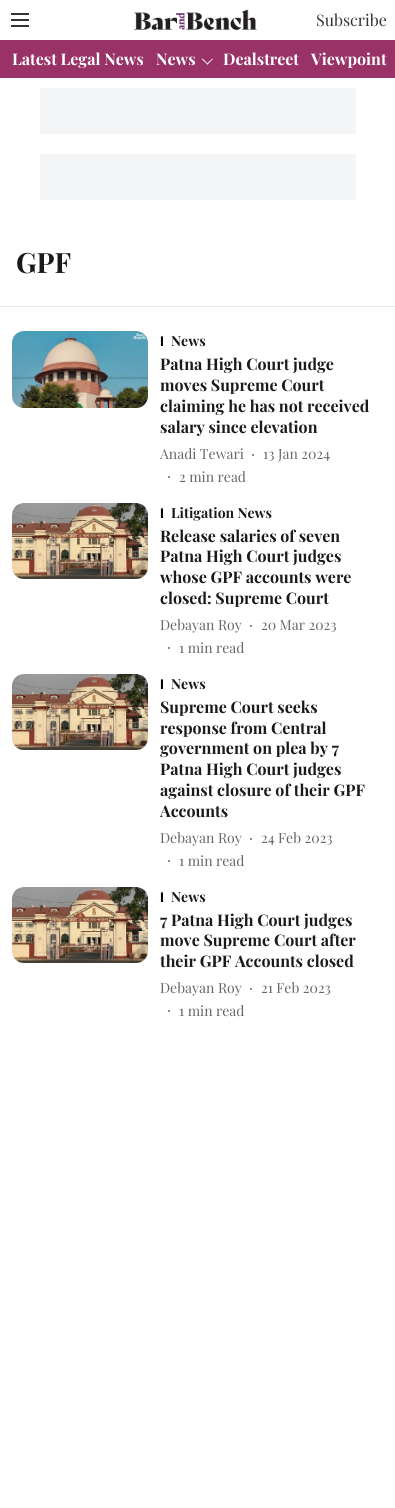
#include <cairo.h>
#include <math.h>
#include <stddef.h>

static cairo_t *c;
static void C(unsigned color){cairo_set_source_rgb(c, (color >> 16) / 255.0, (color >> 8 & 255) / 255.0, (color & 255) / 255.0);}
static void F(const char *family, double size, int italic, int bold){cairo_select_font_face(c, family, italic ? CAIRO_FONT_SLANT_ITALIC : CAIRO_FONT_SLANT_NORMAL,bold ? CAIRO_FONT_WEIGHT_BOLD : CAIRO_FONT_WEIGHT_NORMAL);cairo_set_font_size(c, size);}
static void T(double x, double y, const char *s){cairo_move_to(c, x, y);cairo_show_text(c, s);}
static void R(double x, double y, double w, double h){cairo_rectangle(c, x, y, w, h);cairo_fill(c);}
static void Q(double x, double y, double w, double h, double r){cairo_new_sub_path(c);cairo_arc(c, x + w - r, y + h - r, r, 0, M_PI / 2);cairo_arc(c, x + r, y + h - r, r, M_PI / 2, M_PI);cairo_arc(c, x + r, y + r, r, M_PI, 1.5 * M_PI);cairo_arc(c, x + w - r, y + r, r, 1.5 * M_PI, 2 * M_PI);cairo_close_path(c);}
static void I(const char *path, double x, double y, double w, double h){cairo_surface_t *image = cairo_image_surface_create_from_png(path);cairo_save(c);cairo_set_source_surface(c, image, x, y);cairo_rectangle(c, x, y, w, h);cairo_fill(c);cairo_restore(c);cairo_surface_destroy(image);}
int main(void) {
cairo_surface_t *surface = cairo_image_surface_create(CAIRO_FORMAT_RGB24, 395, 1508);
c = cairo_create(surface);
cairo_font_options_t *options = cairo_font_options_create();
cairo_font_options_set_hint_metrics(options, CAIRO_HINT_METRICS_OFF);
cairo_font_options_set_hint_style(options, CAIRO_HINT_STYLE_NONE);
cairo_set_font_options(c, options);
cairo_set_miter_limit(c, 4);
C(0xffffff);
cairo_paint(c);
I("1.png",11,13,18,14);
I("2.png",134,9,123,21);
F("Playfair Display",16,0,0);
C(0x333333);
T(316,26,"Subscribe");
C(0x993266);
R(0,40,395,38);
F("Playfair Display",16,0,1);
C(0xffffff);
T(12,65,"Latest Legal News");
T(156,65,"News");
cairo_new_path(c);
cairo_move_to(c,212.5,58.5);
cairo_line_to(c,213,59);
cairo_line_to(c,207.5,64.5);
cairo_line_to(c,206.5,64);
cairo_close_path(c);
cairo_fill(c);
cairo_new_path(c);
cairo_move_to(c,202.5,58.5);
cairo_line_to(c,208,64);
cairo_line_to(c,207.5,64.5);
cairo_line_to(c,201.5,59);
cairo_close_path(c);
cairo_fill(c);
T(223,65,"Dealstreet");
T(311,65,"Viewpoint");
C(0xf4f5f7);
R(40,88,316,46);
R(40,154,316,46);
C(0xe6e6e6);
R(0,306,395,1);
F("Playfair Display",28,0,1);
C(0x1a1a1a);
T(16,273,"GPF");
I("3.png",12,331,136,77);
cairo_save(c);
cairo_rectangle(c,160,331,3,19);
cairo_clip(c);
F("Liberation Sans",14,0,1);
C(0x000000);
T(160,346,"I");
cairo_restore(c);
F("Playfair Display",14,0,1);
T(171,346,"News");
F("Playfair Display",16,0,1);
T(160,370,"Patna High Court judge");
T(160,391,"moves Supreme Court");
T(160,412,"claiming he has not received");
T(160,433,"salary since elevation");
F("Playfair Display",14,0,0);
C(0x666666);
T(160,459,"Anadi Tewari");
cairo_new_path(c);
cairo_arc(c,253,455,1,0,2 * M_PI);
cairo_fill(c);
T(263,459,"13 Jan 2024");
cairo_new_path(c);
cairo_arc(c,169,477,1,0,2 * M_PI);
cairo_fill(c);
T(179,482,"2 min read");
C(0xf0f0f0);
Q(12,503,136,76,12);
cairo_fill(c);
I("4.png",12,503,136,76);
cairo_save(c);
cairo_rectangle(c,160,503,3,19);
cairo_clip(c);
F("Liberation Sans",14,0,1);
C(0x000000);
T(160,518,"I");
cairo_restore(c);
F("Playfair Display",14,0,1);
C(0x1a1a1a);
T(171,518,"Litigation News");
F("Playfair Display",16,0,1);
T(160,542,"Release salaries of seven");
T(160,562,"Patna High Court judges");
T(160,583,"whose GPF accounts were");
T(160,604,"closed: Supreme Court");
F("Playfair Display",14,0,0);
C(0x666666);
T(160,630,"Debayan Roy");
cairo_new_path(c);
cairo_arc(c,251,626,1,0,2 * M_PI);
cairo_fill(c);
T(261,630,"20 Mar 2023");
cairo_new_path(c);
cairo_arc(c,169,648,1,0,2 * M_PI);
cairo_fill(c);
T(179,653,"1 min read");
I("5.png",12,674,136,76);
cairo_save(c);
cairo_rectangle(c,160,674,3,19);
cairo_clip(c);
F("Liberation Sans",14,0,1);
C(0x000000);
T(160,689,"I");
cairo_restore(c);
F("Playfair Display",14,0,1);
C(0x1a1a1a);
T(171,689,"News");
F("Playfair Display",16,0,1);
T(160,713,"Supreme Court seeks");
T(160,734,"response from Central");
T(160,754,"government on plea by 7");
T(160,775,"Patna High Court judges");
T(160,796,"against closure of their GPF");
T(160,817,"Accounts");
F("Playfair Display",14,0,0);
C(0x666666);
T(160,843,"Debayan Roy");
cairo_new_path(c);
cairo_arc(c,251,839,1,0,2 * M_PI);
cairo_fill(c);
T(261,843,"24 Feb 2023");
cairo_new_path(c);
cairo_arc(c,169,861,1,0,2 * M_PI);
cairo_fill(c);
T(179,866,"1 min read");
I("5.png",12,887,136,76);
cairo_save(c);
cairo_rectangle(c,160,887,3,19);
cairo_clip(c);
F("Liberation Sans",14,0,1);
C(0x000000);
T(160,902,"I");
cairo_restore(c);
F("Playfair Display",14,0,1);
C(0x1a1a1a);
T(171,902,"News");
F("Playfair Display",16,0,1);
T(160,926,"7 Patna High Court judges");
T(160,946,"move Supreme Court after");
T(160,967,"their GPF Accounts closed");
F("Playfair Display",14,0,0);
C(0x666666);
T(160,993,"Debayan Roy");
cairo_new_path(c);
cairo_arc(c,251,989,1,0,2 * M_PI);
cairo_fill(c);
T(261,993,"21 Feb 2023");
cairo_new_path(c);
cairo_arc(c,169,1011,1,0,2 * M_PI);
cairo_fill(c);
T(179,1016,"1 min read");
cairo_surface_write_to_png(surface, "o.png");
cairo_font_options_destroy(options);
cairo_destroy(c);
cairo_surface_destroy(surface);
return 0;
}
